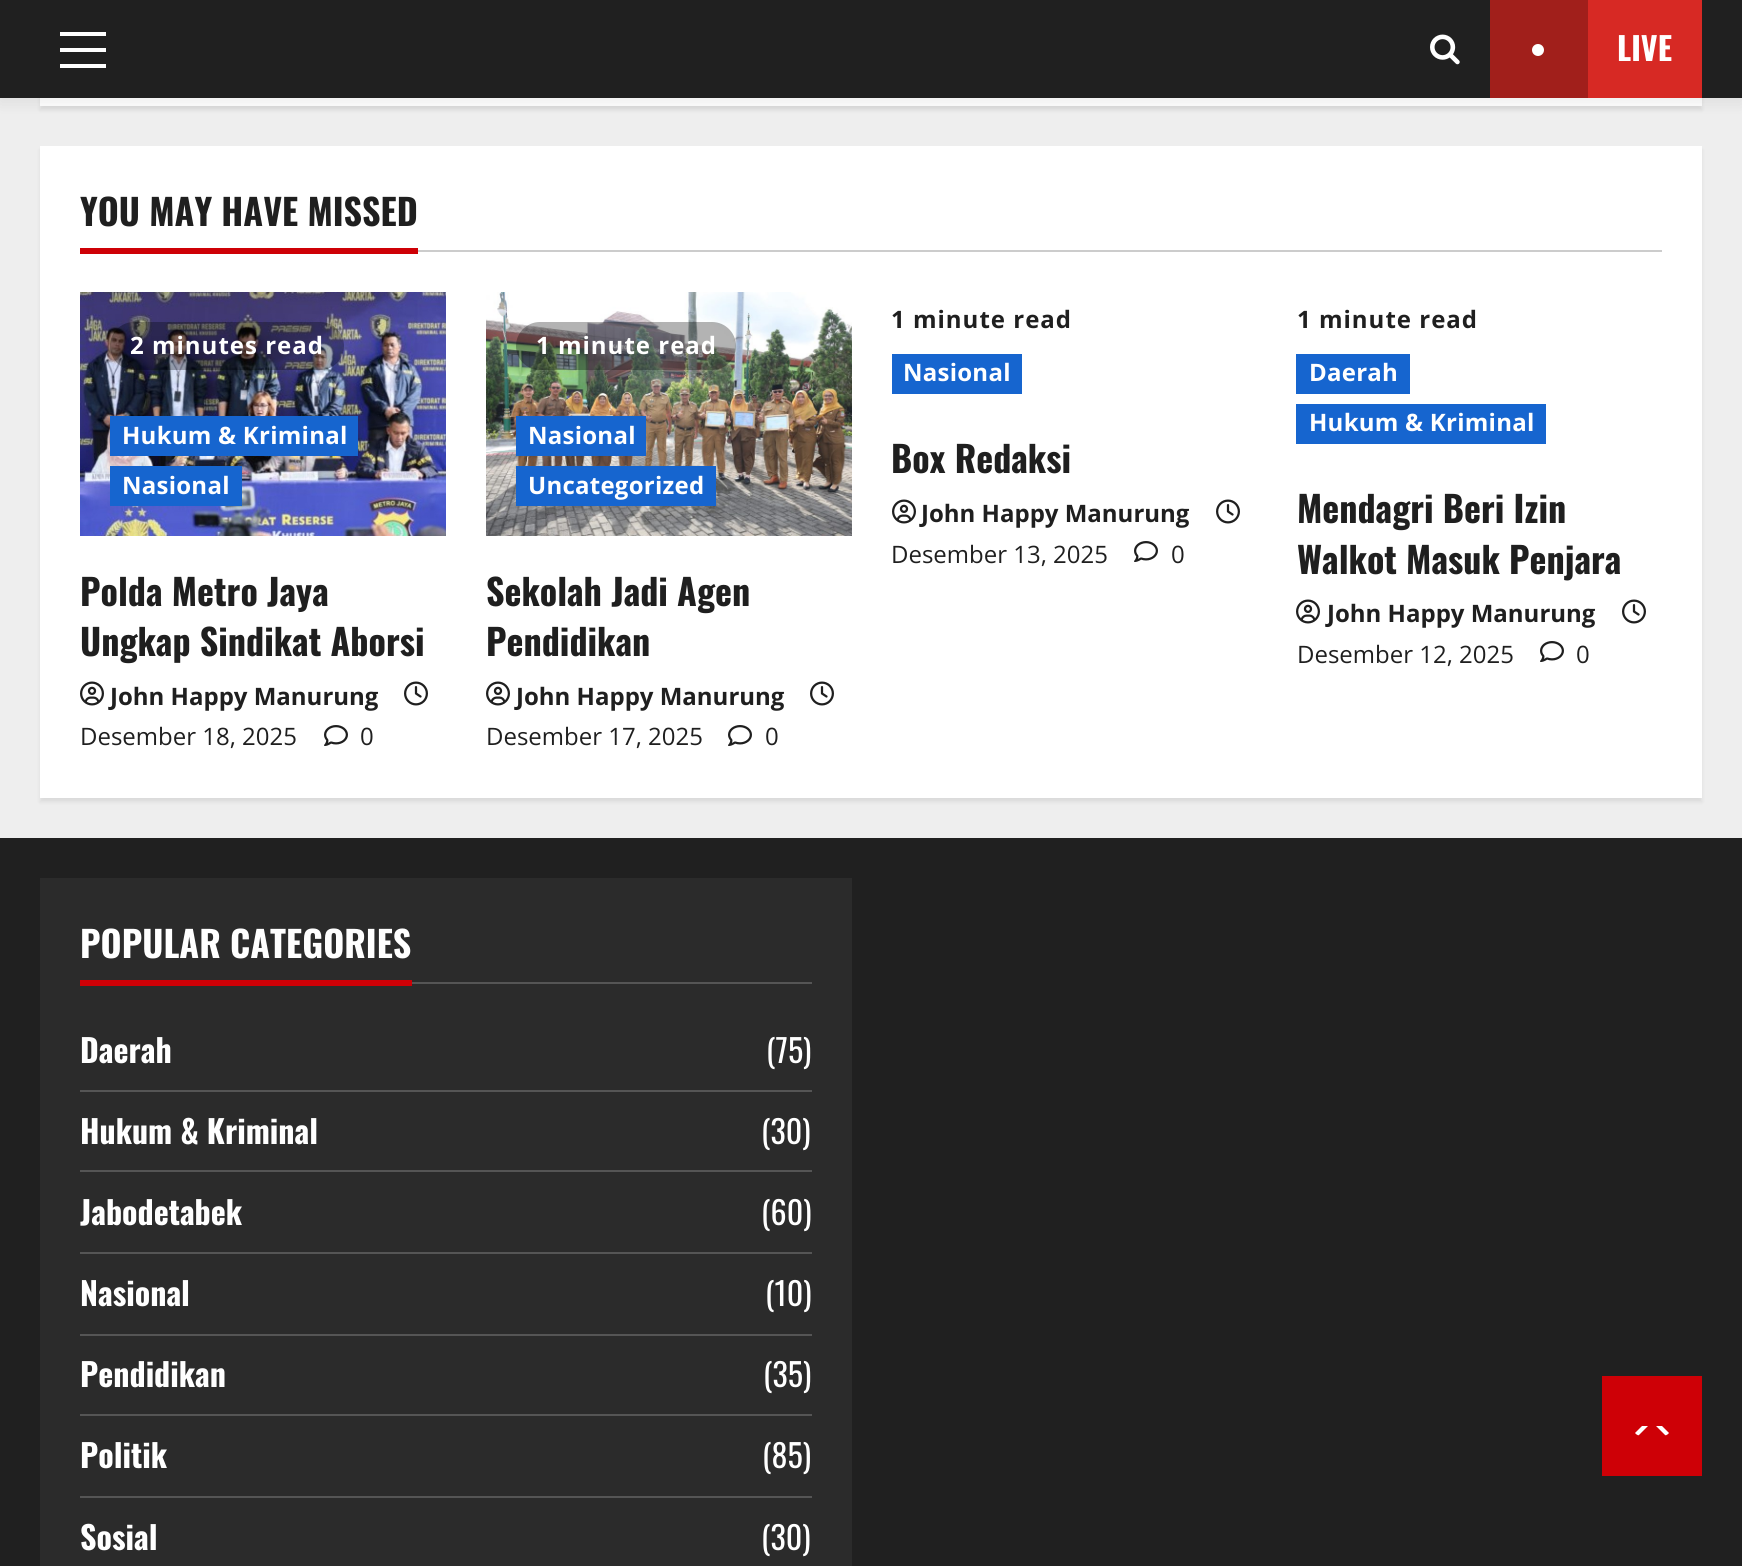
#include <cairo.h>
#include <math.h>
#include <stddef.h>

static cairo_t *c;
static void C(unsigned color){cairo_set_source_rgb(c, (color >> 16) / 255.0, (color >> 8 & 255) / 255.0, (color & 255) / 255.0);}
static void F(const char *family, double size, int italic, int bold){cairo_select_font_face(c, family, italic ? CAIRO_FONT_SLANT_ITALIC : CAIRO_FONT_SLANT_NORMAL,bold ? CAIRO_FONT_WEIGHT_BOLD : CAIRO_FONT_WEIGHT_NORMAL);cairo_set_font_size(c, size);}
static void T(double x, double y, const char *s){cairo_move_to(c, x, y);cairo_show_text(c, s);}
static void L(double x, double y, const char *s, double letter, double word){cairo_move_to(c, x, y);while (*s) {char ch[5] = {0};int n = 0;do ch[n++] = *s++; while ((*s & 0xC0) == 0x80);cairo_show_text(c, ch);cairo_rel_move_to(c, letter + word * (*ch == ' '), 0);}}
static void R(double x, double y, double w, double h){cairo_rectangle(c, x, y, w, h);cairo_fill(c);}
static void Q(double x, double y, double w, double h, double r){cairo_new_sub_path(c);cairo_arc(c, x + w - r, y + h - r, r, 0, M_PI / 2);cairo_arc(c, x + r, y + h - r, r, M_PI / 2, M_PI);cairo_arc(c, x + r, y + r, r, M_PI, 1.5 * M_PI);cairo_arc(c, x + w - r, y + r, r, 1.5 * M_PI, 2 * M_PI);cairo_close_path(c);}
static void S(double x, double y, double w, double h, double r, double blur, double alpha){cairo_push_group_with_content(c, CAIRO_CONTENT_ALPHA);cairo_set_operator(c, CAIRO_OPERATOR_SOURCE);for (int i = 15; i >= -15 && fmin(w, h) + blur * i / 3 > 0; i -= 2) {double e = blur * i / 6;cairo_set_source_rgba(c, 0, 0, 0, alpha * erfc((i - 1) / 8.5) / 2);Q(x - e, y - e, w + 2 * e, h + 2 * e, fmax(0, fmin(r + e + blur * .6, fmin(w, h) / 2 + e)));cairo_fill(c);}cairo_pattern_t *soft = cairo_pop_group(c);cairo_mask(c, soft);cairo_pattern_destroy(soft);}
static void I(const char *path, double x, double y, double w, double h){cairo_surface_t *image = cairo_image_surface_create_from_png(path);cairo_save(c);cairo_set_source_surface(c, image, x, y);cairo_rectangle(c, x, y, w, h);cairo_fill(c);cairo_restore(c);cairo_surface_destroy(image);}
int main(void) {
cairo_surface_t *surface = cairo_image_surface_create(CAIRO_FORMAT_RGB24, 1742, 1566);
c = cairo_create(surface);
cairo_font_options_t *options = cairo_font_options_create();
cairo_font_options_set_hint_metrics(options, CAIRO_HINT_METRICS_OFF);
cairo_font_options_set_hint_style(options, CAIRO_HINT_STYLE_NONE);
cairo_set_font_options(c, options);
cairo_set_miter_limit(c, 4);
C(0xeeeeee);
cairo_paint(c);
C(0x000000);
S(40,-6,1662,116,0,2,.08);
C(0xffffff);
R(40,98,1662,8);
C(0x000000);
S(0,4,1742,98,0,8,.08);
C(0x202020);
R(0,0,1742,98);
C(0xffffff);
R(60,48,46,4);
R(60,32,46,4);
R(60,64,46,4);
I("1.png",1430,34,30,31);
C(0xd72924);
R(1588,0,114,98);
C(0xa11f1b);
R(1490,0,98,98);
C(0xffffff);
cairo_arc(c,1538,50,6,0,2 * M_PI);
cairo_fill(c);
F("Oswald",32,0,1);
T(1617,61,"LIVE");
C(0x000000);
S(40,150,1662,652,0,2,.08);
C(0xffffff);
R(40,146,1662,652);
C(0xcccccc);
R(418,250,1244,2);
F("Oswald",36,0,1);
C(0x1f1f1f);
T(80,226,"YOU MAY HAVE MISSED");
C(0xce0006);
R(80,248,338,6);
I("2.png",80,292,366,244);
cairo_set_source_rgba(c,0,0,0,0.3);
Q(110,322,234,48,24);
cairo_fill(c);
F("Open Sans",24,0,1);
C(0xffffff);
L(130,354,"2 minutes read",1,0);
C(0x1665cf);
R(110,416,248,40);
C(0xffffff);
L(122,444,"Hukum & Kriminal",.25,0);
C(0x1665cf);
R(110,466,132,40);
C(0xffffff);
L(122,494,"Nasional",.25,0);
F("Oswald",36,0,1);
C(0x1f1f1f);
T(80,606,"Polda Metro Jaya");
T(80,656,"Ungkap Sindikat Aborsi");
I("3.png",80,681,24,25);
F("Open Sans",24,0,1);
T(110,705,"John Happy Manurung");
I("4.png",404,681,24,25);
F("Open Sans",24,0,0);
T(80,745,"Desember 18, 2025");
I("5.png",324,725,24,21);
T(360,745,"0");
I("6.png",486,292,366,244);
cairo_set_source_rgba(c,0,0,0,0.3);
Q(516,322,220,48,24);
cairo_fill(c);
F("Open Sans",24,0,1);
C(0xffffff);
L(536,354,"1 minute read",1,0);
C(0x1665cf);
R(516,416,130,40);
C(0xffffff);
L(528,444,"Nasional",.25,0);
C(0x1665cf);
R(516,466,200,40);
C(0xffffff);
L(528,494,"Uncategorized",.25,0);
F("Oswald",36,0,1);
C(0x1f1f1f);
T(486,606,"Sekolah Jadi Agen");
T(486,656,"Pendidikan");
I("3.png",486,681,24,25);
F("Open Sans",24,0,1);
T(516,705,"John Happy Manurung");
I("4.png",810,681,24,25);
F("Open Sans",24,0,0);
T(486,745,"Desember 17, 2025");
I("5.png",728,725,24,21);
T(765,745,"0");
F("Open Sans",24,0,1);
L(891,328,"1 minute read",1,0);
C(0x1665cf);
R(892,354,130,40);
C(0xffffff);
L(903,381,"Nasional",.25,0);
F("Oswald",36,0,1);
C(0x1f1f1f);
T(891,473,"Box Redaksi");
I("3.png",892,499,24,25);
F("Open Sans",24,0,1);
T(921,522,"John Happy Manurung");
I("4.png",1216,499,24,25);
F("Open Sans",24,0,0);
T(891,563,"Desember 13, 2025");
I("5.png",1134,541,24,21);
T(1171,563,"0");
F("Open Sans",24,0,1);
L(1297,328,"1 minute read",1,0);
C(0x1665cf);
R(1296,354,114,40);
C(0xffffff);
L(1309,381,"Daerah",.25,0);
C(0x1665cf);
R(1296,404,250,40);
C(0xffffff);
L(1309,431,"Hukum & Kriminal",.25,0);
F("Oswald",36,0,1);
C(0x1f1f1f);
T(1297,523,"Mendagri Beri Izin");
T(1297,574,"Walkot Masuk Penjara");
I("3.png",1296,599,24,25);
F("Open Sans",24,0,1);
T(1327,622,"John Happy Manurung");
I("4.png",1622,599,24,25);
F("Open Sans",24,0,0);
T(1297,663,"Desember 12, 2025");
I("5.png",1540,641,24,21);
T(1576,663,"0");
C(0x202020);
R(0,838,1742,728);
C(0x2b2b2b);
R(40,878,812,688);
C(0x555555);
R(412,982,400,2);
F("Oswald",36,0,1);
C(0xffffff);
T(80,958,"POPULAR CATEGORIES");
C(0xce0006);
R(80,980,332,6);
C(0x555555);
R(80,1090,732,2);
F("Oswald",32,0,1);
C(0xffffff);
T(80,1063,"Daerah");
F("Oswald",32,0,0);
T(766,1063,"(75)");
C(0x555555);
R(80,1170,732,2);
F("Oswald",32,0,1);
C(0xffffff);
T(80,1144,"Hukum & Kriminal");
F("Oswald",32,0,0);
T(761,1144,"(30)");
C(0x555555);
R(80,1252,732,2);
F("Oswald",32,0,1);
C(0xffffff);
T(80,1225,"Jabodetabek");
F("Oswald",32,0,0);
T(761,1225,"(60)");
C(0x555555);
R(80,1334,732,2);
F("Oswald",32,0,1);
C(0xffffff);
T(80,1306,"Nasional");
F("Oswald",32,0,0);
T(765,1306,"(10)");
C(0x555555);
R(80,1414,732,2);
F("Oswald",32,0,1);
C(0xffffff);
T(80,1387,"Pendidikan");
F("Oswald",32,0,0);
T(763,1387,"(35)");
C(0x555555);
R(80,1496,732,2);
F("Oswald",32,0,1);
C(0xffffff);
T(80,1468,"Politik");
F("Oswald",32,0,0);
T(762,1468,"(85)");
F("Oswald",32,0,1);
T(80,1550,"Sosial");
F("Oswald",32,0,0);
T(761,1550,"(30)");
C(0xce0006);
R(1602,1376,100,100);
C(0xffffff);
cairo_new_path(c);
cairo_move_to(c,1642,1436);
cairo_line_to(c,1662,1436);
cairo_curve_to(c,1665,1436,1667.5,1435,1669,1433);
cairo_line_to(c,1662,1426);
cairo_line_to(c,1642,1426);
cairo_line_to(c,1635,1433);
cairo_curve_to(c,1636.5,1435,1639,1436,1642,1436);
cairo_close_path(c);
cairo_fill(c);
C(0xce0006);
cairo_new_path(c);
cairo_move_to(c,1672,1442);
cairo_line_to(c,1632,1442);
cairo_line_to(c,1652,1422);
cairo_close_path(c);
cairo_fill(c);
cairo_surface_write_to_png(surface, "o.png");
cairo_font_options_destroy(options);
cairo_destroy(c);
cairo_surface_destroy(surface);
return 0;
}
